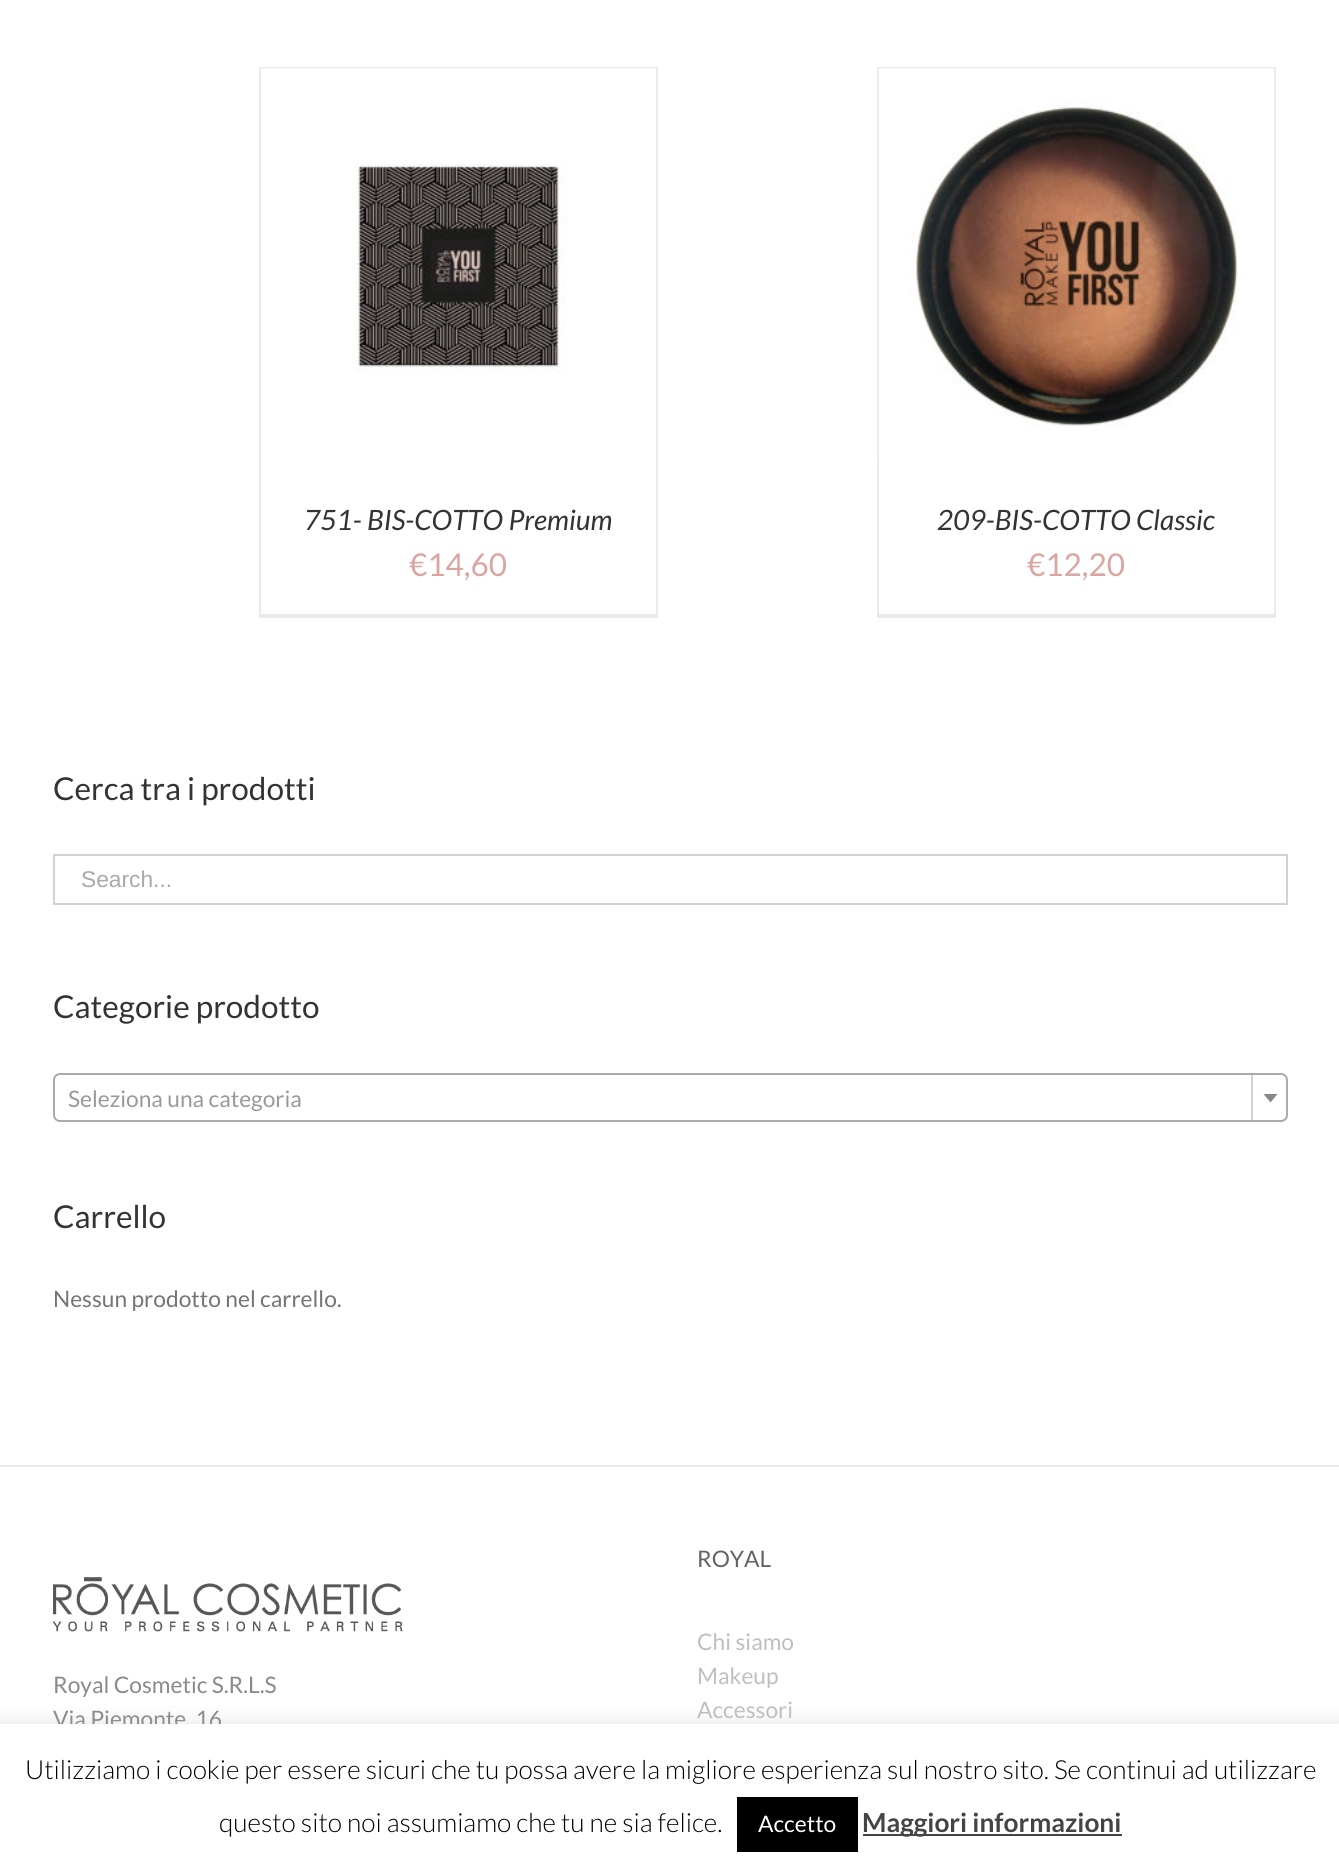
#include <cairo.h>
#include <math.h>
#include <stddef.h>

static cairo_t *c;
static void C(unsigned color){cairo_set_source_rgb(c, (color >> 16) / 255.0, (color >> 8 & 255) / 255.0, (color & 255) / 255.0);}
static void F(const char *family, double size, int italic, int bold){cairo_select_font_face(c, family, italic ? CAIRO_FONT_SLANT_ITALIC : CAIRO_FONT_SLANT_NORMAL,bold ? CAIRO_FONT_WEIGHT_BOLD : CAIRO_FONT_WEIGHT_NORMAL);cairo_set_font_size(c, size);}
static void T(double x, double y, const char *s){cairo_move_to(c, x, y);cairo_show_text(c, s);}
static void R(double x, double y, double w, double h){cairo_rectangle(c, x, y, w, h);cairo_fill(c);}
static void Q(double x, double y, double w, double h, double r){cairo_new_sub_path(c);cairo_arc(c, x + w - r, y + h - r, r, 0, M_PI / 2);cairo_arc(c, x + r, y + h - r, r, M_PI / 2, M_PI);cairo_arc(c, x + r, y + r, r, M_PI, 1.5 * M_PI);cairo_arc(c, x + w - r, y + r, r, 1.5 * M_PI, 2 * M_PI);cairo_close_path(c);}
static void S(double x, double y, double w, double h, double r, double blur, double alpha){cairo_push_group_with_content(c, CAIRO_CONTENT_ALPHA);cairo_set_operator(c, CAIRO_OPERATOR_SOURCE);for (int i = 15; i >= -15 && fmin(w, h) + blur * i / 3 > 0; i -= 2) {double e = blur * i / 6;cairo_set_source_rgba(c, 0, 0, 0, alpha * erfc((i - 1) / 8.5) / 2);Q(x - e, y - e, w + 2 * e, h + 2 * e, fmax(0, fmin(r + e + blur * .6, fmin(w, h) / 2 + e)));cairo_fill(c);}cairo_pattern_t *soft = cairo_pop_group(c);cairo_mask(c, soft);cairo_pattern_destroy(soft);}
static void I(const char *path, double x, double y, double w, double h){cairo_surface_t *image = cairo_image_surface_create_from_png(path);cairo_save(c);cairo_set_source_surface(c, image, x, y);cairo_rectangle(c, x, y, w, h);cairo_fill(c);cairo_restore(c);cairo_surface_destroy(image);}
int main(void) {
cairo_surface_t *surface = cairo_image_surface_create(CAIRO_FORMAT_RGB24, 1339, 1871);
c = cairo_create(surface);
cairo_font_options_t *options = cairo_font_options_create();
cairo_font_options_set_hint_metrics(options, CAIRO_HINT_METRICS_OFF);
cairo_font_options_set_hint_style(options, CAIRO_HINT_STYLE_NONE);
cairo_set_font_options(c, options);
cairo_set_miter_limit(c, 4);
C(0xffffff);
cairo_paint(c);
C(0xebeaea);
R(259,67,399,2);
R(656,67,2,551);
R(259,614,399,4);
R(259,67,2,551);
I("1.png",261,68,395,306);
F("Lato",28,1,0);
C(0x333333);
T(304,530,"751- BIS-COTTO Premium");
F("Lato",31.5,0,0);
C(0xd9a6a2);
T(409,576,"€14,60");
C(0xebeaea);
R(877,67,399,2);
R(1274,67,2,551);
R(877,614,399,4);
R(877,67,2,551);
I("2.png",878,68,396,395);
F("Lato",28,1,0);
C(0x333333);
T(937,530,"209-BIS-COTTO Classic");
F("Lato",31.5,0,0);
C(0xd9a6a2);
T(1027,576,"€12,20");
C(0x333333);
T(53,800,"Cerca tra i prodotti");
cairo_rectangle(c,54,855,1233,49);
C(0xd2d2d2);
cairo_stroke(c);
F("Liberation Sans",22.75,0,0);
C(0xaaa9a9);
T(81,887,"Search...");
F("Lato",31.5,0,0);
C(0x333333);
T(53,1018,"Categorie prodotto");
Q(54,1074,1233,47,6);
C(0xaaaaaa);
cairo_stroke(c);
F("Lato",22.75,0,0);
C(0x999999);
T(68,1107,"Seleziona una categoria");
C(0xd2d2d2);
R(1251,1075,2,45);
C(0x888888);
cairo_new_path(c);
cairo_move_to(c,1263.5,1094);
cairo_line_to(c,1277.5,1094);
cairo_line_to(c,1270.5,1102.5);
cairo_close_path(c);
cairo_fill(c);
F("Lato",31.5,0,0);
C(0x333333);
T(53,1228,"Carrello");
F("Lato",22.75,0,0);
C(0x747474);
T(53,1307,"Nessun prodotto nel carrello.");
C(0xe9eaee);
R(0,1465,1339,2);
I("3.png",53,1577,350,55);
C(0x8c8989);
T(53,1693,"Royal Cosmetic S.R.L.S");
T(53,1727,"Via Piemonte, 16");
C(0x636363);
T(697,1567,"ROYAL");
C(0xbfbfbf);
T(697,1650,"Chi siamo");
T(697,1684,"Makeup");
T(697,1718,"Accessori");
C(0xacabab);
S(0,1722,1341,149,0,9,.3);
C(0xffffff);
R(0,1724,1339,147);
F("Lato Light",26.25,0,0);
C(0x000000);
T(25,1779,"Utilizziamo i cookie per essere sicuri che tu possa avere la migliore esperienza sul nostro sito. Se continui ad utilizzare");
T(219,1832,"questo sito noi assumiamo che tu ne sia felice.");
R(737,1797,121,55);
F("Lato",22.75,0,0);
C(0xffffff);
T(758,1832,"Accetto");
C(0x444444);
R(863,1834,259,2);
F("Lato",26.25,0,1);
T(862,1832,"Maggiori informazioni");
cairo_surface_write_to_png(surface, "o.png");
cairo_font_options_destroy(options);
cairo_destroy(c);
cairo_surface_destroy(surface);
return 0;
}
